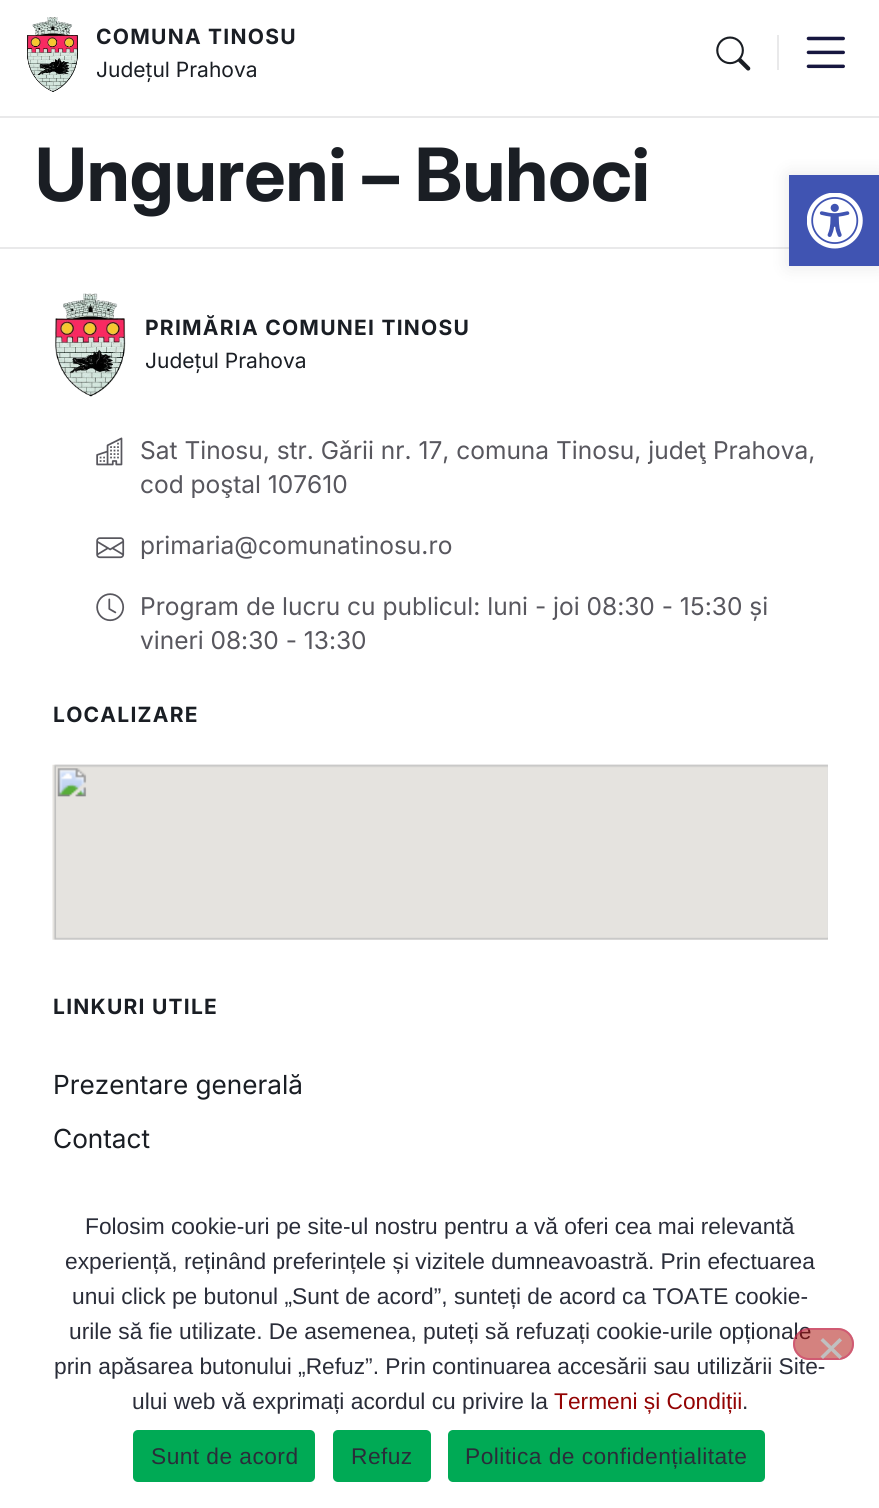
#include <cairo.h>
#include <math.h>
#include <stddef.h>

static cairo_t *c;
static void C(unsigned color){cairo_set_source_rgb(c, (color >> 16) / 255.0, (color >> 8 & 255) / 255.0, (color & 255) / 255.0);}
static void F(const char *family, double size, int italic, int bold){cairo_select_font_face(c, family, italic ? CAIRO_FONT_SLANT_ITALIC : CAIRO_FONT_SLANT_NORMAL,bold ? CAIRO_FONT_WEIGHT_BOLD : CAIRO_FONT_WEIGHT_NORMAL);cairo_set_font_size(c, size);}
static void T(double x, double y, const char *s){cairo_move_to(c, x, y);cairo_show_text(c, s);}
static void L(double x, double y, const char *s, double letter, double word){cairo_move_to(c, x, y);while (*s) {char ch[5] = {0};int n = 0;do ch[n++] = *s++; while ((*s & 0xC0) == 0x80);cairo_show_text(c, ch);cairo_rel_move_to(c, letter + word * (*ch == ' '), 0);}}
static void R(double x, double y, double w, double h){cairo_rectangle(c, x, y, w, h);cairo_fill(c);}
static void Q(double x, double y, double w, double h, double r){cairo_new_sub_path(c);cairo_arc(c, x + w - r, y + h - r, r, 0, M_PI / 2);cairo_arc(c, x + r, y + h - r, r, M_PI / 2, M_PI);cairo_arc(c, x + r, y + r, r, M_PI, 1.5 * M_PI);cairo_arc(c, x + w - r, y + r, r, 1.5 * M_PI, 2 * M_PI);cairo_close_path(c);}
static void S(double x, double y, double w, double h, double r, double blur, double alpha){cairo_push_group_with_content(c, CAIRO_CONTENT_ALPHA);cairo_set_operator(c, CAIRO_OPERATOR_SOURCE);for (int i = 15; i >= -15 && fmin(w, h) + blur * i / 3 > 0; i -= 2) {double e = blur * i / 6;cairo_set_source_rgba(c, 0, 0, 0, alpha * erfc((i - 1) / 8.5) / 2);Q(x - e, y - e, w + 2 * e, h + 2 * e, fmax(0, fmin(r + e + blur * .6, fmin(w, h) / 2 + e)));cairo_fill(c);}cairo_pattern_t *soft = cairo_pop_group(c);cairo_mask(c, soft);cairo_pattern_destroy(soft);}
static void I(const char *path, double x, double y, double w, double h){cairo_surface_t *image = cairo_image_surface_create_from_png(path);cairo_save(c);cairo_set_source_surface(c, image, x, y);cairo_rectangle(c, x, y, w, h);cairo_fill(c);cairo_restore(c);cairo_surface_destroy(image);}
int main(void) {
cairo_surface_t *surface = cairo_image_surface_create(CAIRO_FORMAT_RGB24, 879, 1508);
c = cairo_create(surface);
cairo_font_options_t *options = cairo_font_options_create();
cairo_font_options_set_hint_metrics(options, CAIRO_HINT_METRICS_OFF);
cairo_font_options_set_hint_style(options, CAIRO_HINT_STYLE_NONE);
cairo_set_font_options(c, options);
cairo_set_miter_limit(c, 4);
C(0xffffff);
cairo_paint(c);
C(0xe9e9ea);
R(0,116,879,2);
I("1.png",27,17,51,75);
F("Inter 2",21,0,1);
C(0x1a1e24);
L(96,44,"COMUNA TINOSU",1.25,0);
F("Inter",21,0,0);
T(96,77,"Județul Prahova");
I("2.png",716,36,35,35);
C(0xe9e9ea);
R(777,35,2,35);
I("3.png",806,36,39,33);
F("Inter",73.5,0,1);
C(0x1a1e24);
T(35,201,"Ungureni – Buhoci");
C(0xe9e9ea);
R(0,247,789,2);
C(0x000000);
S(789,175,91,91,0,9,.1);
C(0x4054b2);
R(789,175,90,91);
I("4.png",807,193,56,56);
I("5.png",55,293,71,104);
F("Inter 2",21,0,1);
C(0x1a1e24);
L(145,335,"PRIMĂRIA COMUNEI TINOSU",1.25,0);
F("Inter",21,0,0);
T(145,368,"Județul Prahova");
I("6.png",96,437,27,29);
F("Inter",24.5,0,0);
C(0x58575e);
T(140,459,"Sat Tinosu, str. Gǎrii nr. 17, comuna Tinosu, judeţ Prahova,");
T(140,493,"cod poştal 107610");
I("7.png",96,537,29,22);
T(140,554,"primaria@comunatinosu.ro");
I("8.png",96,593,29,29);
T(140,615,"Program de lucru cu publicul: luni - joi 08:30 - 15:30 și");
T(140,649,"vineri 08:30 - 13:30");
F("Inter 2",21,0,1);
C(0x1a1e24);
L(53,722,"LOCALIZARE",1.25,0);
I("9.png",52,764,776,176);
L(53,1014,"LINKURI UTILE",1.25,0);
F("Inter 2",26.25,0,0);
T(53,1094,"Prezentare generală");
T(53,1148,"Contact");
F("Liberation Sans",22.75,0,0);
C(0x2a2d39);
T(85,1234,"Folosim cookie-uri pe site-ul nostru pentru a vă oferi cea mai relevantă");
T(65,1269,"experiență, reținând preferințele și vizitele dumneavoastră. Prin efectuarea");
T(72,1304,"unui click pe butonul „Sunt de acord”, sunteți de acord ca TOATE cookie-");
T(69,1339,"urile să fie utilizate. De asemenea, puteți să refuzați cookie-urile opționale");
T(54,1374,"prin apăsarea butonului „Refuz”. Prin continuarea accesării sau utilizării Site-");
T(132,1409,"ului web vă exprimați acordul cu privire la");
C(0x930303);
T(554,1409,"Termeni și Condiții");
C(0x2a2d39);
T(742,1409,".");
cairo_set_source_rgba(c,0.671,0.027,0,0.5);
Q(793,1328,61,32,16);
cairo_fill(c);
Q(794,1329,59,30,15);
cairo_set_source_rgba(c,0.8,0.2,0.4,0.5);
cairo_stroke(c);
C(0xc0c0c0);
cairo_new_path(c);
cairo_move_to(c,839.5,1338);
cairo_line_to(c,842,1340.5);
cairo_line_to(c,823,1359);
cairo_line_to(c,820.5,1356.5);
cairo_close_path(c);
cairo_fill(c);
cairo_new_path(c);
cairo_move_to(c,820.5,1340.5);
cairo_line_to(c,823,1338);
cairo_line_to(c,842,1356.5);
cairo_line_to(c,839.5,1359);
cairo_close_path(c);
cairo_fill(c);
C(0x00aa55);
Q(133,1430,182,52,5);
cairo_fill(c);
C(0x2a2d39);
L(151,1464,"Sunt de acord",.45,0);
C(0x00aa55);
Q(333,1430,98,52,5);
cairo_fill(c);
C(0x2a2d39);
L(351,1464,"Refuz",.45,0);
C(0x00aa55);
Q(448,1430,317,52,5);
cairo_fill(c);
C(0x2a2d39);
L(465,1464,"Politica de confidențialitate",.45,0);
cairo_surface_write_to_png(surface, "o.png");
cairo_font_options_destroy(options);
cairo_destroy(c);
cairo_surface_destroy(surface);
return 0;
}
